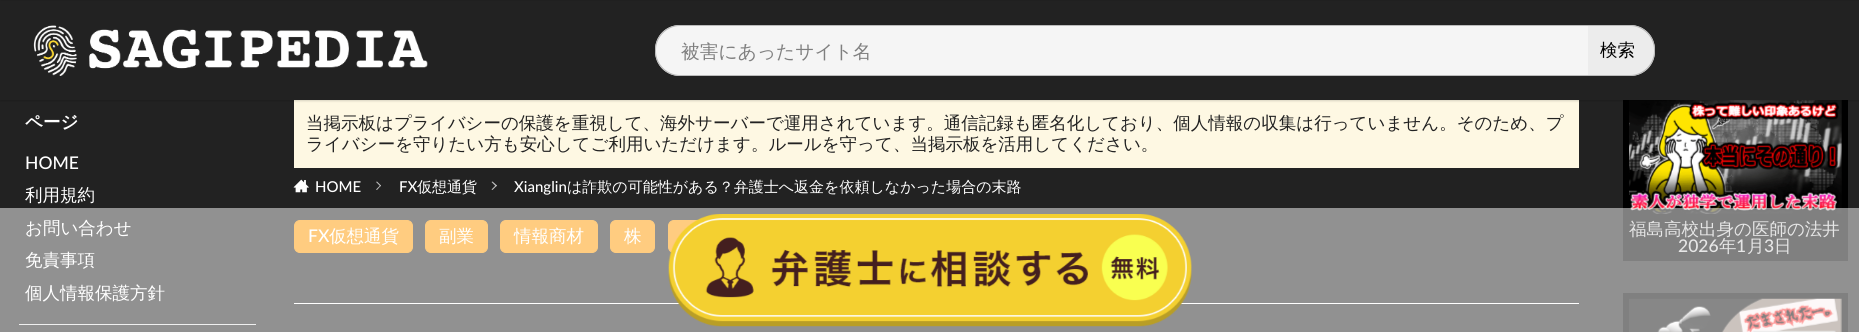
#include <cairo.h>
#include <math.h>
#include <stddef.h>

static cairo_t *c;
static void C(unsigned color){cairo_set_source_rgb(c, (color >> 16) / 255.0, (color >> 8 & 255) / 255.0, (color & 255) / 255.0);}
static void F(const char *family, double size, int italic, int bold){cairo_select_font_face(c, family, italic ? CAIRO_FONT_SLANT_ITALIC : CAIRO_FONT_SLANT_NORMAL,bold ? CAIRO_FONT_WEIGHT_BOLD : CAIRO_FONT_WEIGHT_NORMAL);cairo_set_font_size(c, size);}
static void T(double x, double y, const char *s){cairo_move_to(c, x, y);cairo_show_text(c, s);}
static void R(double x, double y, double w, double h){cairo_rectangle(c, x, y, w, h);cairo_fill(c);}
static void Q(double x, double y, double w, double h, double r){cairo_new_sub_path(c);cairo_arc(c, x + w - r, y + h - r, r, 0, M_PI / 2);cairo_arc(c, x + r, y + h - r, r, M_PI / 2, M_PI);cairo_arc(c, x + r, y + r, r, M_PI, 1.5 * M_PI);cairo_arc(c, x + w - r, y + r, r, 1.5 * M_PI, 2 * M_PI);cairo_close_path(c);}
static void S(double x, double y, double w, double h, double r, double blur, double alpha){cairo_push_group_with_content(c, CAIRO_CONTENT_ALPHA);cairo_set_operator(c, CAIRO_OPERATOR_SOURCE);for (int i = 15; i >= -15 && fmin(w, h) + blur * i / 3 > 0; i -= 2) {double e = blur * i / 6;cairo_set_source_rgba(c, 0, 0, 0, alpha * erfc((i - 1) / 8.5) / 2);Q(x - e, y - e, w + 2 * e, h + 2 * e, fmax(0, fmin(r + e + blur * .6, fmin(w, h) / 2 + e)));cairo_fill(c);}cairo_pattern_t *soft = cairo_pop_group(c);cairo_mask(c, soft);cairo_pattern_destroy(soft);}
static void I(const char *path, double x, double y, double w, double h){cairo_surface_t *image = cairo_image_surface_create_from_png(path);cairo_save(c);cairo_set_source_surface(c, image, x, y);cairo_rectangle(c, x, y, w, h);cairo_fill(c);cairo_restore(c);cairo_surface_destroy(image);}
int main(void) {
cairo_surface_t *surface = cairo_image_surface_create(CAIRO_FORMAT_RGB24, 1859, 332);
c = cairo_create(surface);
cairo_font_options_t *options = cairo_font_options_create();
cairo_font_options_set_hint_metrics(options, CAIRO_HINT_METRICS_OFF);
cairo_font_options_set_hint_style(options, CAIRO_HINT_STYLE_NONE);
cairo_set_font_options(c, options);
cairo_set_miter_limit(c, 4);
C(0x222222);
cairo_paint(c);
C(0xfef8e3);
R(294,100,1285,68);
C(0x000000);
R(1623,100,225,161);
I("3.png",1629,100,213,114);
C(0x000000);
S(0,1,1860,100,0,1,.15);
C(0x222222);
R(0,1,1859,99);
I("1.png",33,25,395,51);
C(0xf5f5f5);
cairo_new_path(c);
cairo_move_to(c,680,25);
cairo_line_to(c,1588,25);
cairo_line_to(c,1588,76);
cairo_line_to(c,680,76);
cairo_curve_to(c,666,76,655,65,655,51);
cairo_line_to(c,655,50);
cairo_curve_to(c,655,36,666,25,680,25);
cairo_close_path(c);
cairo_fill(c);
C(0xbbbbbb);
cairo_set_fill_rule(c,CAIRO_FILL_RULE_EVEN_ODD);
cairo_new_path(c);
cairo_move_to(c,680,25);
cairo_line_to(c,1588,25);
cairo_line_to(c,1588,76);
cairo_line_to(c,680,76);
cairo_curve_to(c,666,76,655,65,655,51);
cairo_line_to(c,655,50);
cairo_curve_to(c,655,36,666,25,680,25);
cairo_close_path(c);
cairo_move_to(c,680,26);
cairo_line_to(c,1588,26);
cairo_line_to(c,1588,75);
cairo_line_to(c,680,75);
cairo_curve_to(c,667,75,656,64,656,51);
cairo_line_to(c,656,50);
cairo_curve_to(c,656,37,667,26,680,26);
cairo_close_path(c);
cairo_fill(c);
F("WenQuanYi Zen Hei Medium",18.75,0,0);
C(0x7f7f7f);
T(681,58,"被害にあったサイト名");
C(0xececec);
cairo_new_path(c);
cairo_move_to(c,1588,25);
cairo_line_to(c,1630,25);
cairo_curve_to(c,1644,25,1655,36,1655,50);
cairo_line_to(c,1655,51);
cairo_curve_to(c,1655,65,1644,76,1630,76);
cairo_line_to(c,1588,76);
cairo_close_path(c);
cairo_fill(c);
C(0xbbbbbb);
cairo_new_path(c);
cairo_move_to(c,1588,25);
cairo_line_to(c,1630,25);
cairo_curve_to(c,1644,25,1655,36,1655,50);
cairo_line_to(c,1655,51);
cairo_curve_to(c,1655,65,1644,76,1630,76);
cairo_line_to(c,1588,76);
cairo_close_path(c);
cairo_move_to(c,1588,26);
cairo_line_to(c,1630,26);
cairo_curve_to(c,1643,26,1654,37,1654,50);
cairo_line_to(c,1654,51);
cairo_curve_to(c,1654,64,1643,75,1630,75);
cairo_line_to(c,1588,75);
cairo_close_path(c);
cairo_fill(c);
F("WenQuanYi Zen Hei Medium",17.5,0,0);
C(0x000000);
T(1600,56,"検索");
C(0xdedede);
R(19,324,237,1);
F("WenQuanYi Zen Hei",17.5,0,1);
C(0xffffff);
T(25,128,"ページ");
F("Lato Medium",17.5,0,0);
T(25,169,"HOME");
F("WenQuanYi Zen Hei Medium",17.5,0,0);
T(25,201,"利用規約");
T(25,234,"お問い合わせ");
T(25,266,"免責事項");
T(25,299,"個人情報保護方針");
C(0x222222);
T(306,129,"当掲示板はプライバシーの保護を重視して、海外サーバーで運用されています。通信記録も匿名化しており、個人情報の収集は行っていません。そのため、プ");
T(306,150,"ライバシーを守りたい方も安心してご利用いただけます。ルールを守って、当掲示板を活用してください。");
I("2.png",293,179,16,14);
F("Lato Medium",15,0,0);
C(0xffffff);
T(315,192,"HOME");
C(0xbfbfbf);
cairo_set_fill_rule(c,CAIRO_FILL_RULE_WINDING);
cairo_new_path(c);
cairo_move_to(c,377,181.5);
cairo_line_to(c,381,185.5);
cairo_line_to(c,380.5,186.5);
cairo_line_to(c,376,182);
cairo_close_path(c);
cairo_fill(c);
cairo_new_path(c);
cairo_move_to(c,380.5,185);
cairo_line_to(c,381,185.5);
cairo_line_to(c,377,190);
cairo_line_to(c,376,189.5);
cairo_close_path(c);
cairo_fill(c);
C(0xffffff);
T(399,192,"FX");
F("WenQuanYi Zen Hei Medium",15,0,0);
T(417,192,"仮想通貨");
C(0xbfbfbf);
cairo_new_path(c);
cairo_move_to(c,492.5,181.5);
cairo_line_to(c,497,185.5);
cairo_line_to(c,496,186.5);
cairo_line_to(c,491.5,182);
cairo_close_path(c);
cairo_fill(c);
cairo_new_path(c);
cairo_move_to(c,496,185);
cairo_line_to(c,497,185.5);
cairo_line_to(c,492.5,190);
cairo_line_to(c,491.5,189.5);
cairo_close_path(c);
cairo_fill(c);
F("Lato Medium",15,0,0);
C(0xffffff);
T(514,192,"Xianglin");
F("WenQuanYi Zen Hei Medium",15,0,0);
T(567,192,"は詐欺の可能性がある？弁護士へ返金を依頼しなかった場合の末路");
C(0xff9900);
Q(294.5,220.5,118,32,5.5);
cairo_fill_preserve(c);
cairo_set_line_width(c,1);
cairo_stroke(c);
F("Lato Medium",17.5,0,0);
C(0xffffff);
T(308,242,"FX");
F("WenQuanYi Zen Hei Medium",17.5,0,0);
T(329,242,"仮想通貨");
C(0xff9900);
Q(425.5,220.5,62,32,5.5);
cairo_fill_preserve(c);
cairo_stroke(c);
C(0xffffff);
T(439,242,"副業");
C(0xff9900);
Q(500.5,220.5,97,32,5.5);
cairo_fill_preserve(c);
cairo_stroke(c);
C(0xffffff);
T(514,242,"情報商材");
C(0xff9900);
Q(610.5,220.5,44,32,5.5);
cairo_fill_preserve(c);
cairo_stroke(c);
C(0xffffff);
T(624,242,"株");
C(0xff9900);
Q(668.5,220.5,96,32,5.5);
cairo_fill_preserve(c);
cairo_stroke(c);
C(0xcccccc);
T(1629,235,"福島高校出身の医師の法井");
F("Lato Medium",17.5,0,0);
T(1678,252,"2026");
F("WenQuanYi Zen Hei Medium",17.5,0,0);
T(1719,252,"年");
F("Lato Medium",17.5,0,0);
T(1736,252,"1");
F("WenQuanYi Zen Hei Medium",17.5,0,0);
T(1747,252,"月");
F("Lato Medium",17.5,0,0);
T(1764,252,"3");
F("WenQuanYi Zen Hei Medium",17.5,0,0);
T(1774,252,"日");
C(0x000000);
R(1623,293,225,39);
I("4.png",1629,298,213,34);
C(0xffffff);
R(294,303,1285,1);
cairo_set_source_rgba(c,1,1,1,0.5);
R(0,208,1859,124);
I("5.png",668,214,524,113);
cairo_surface_write_to_png(surface, "o.png");
cairo_font_options_destroy(options);
cairo_destroy(c);
cairo_surface_destroy(surface);
return 0;
}
